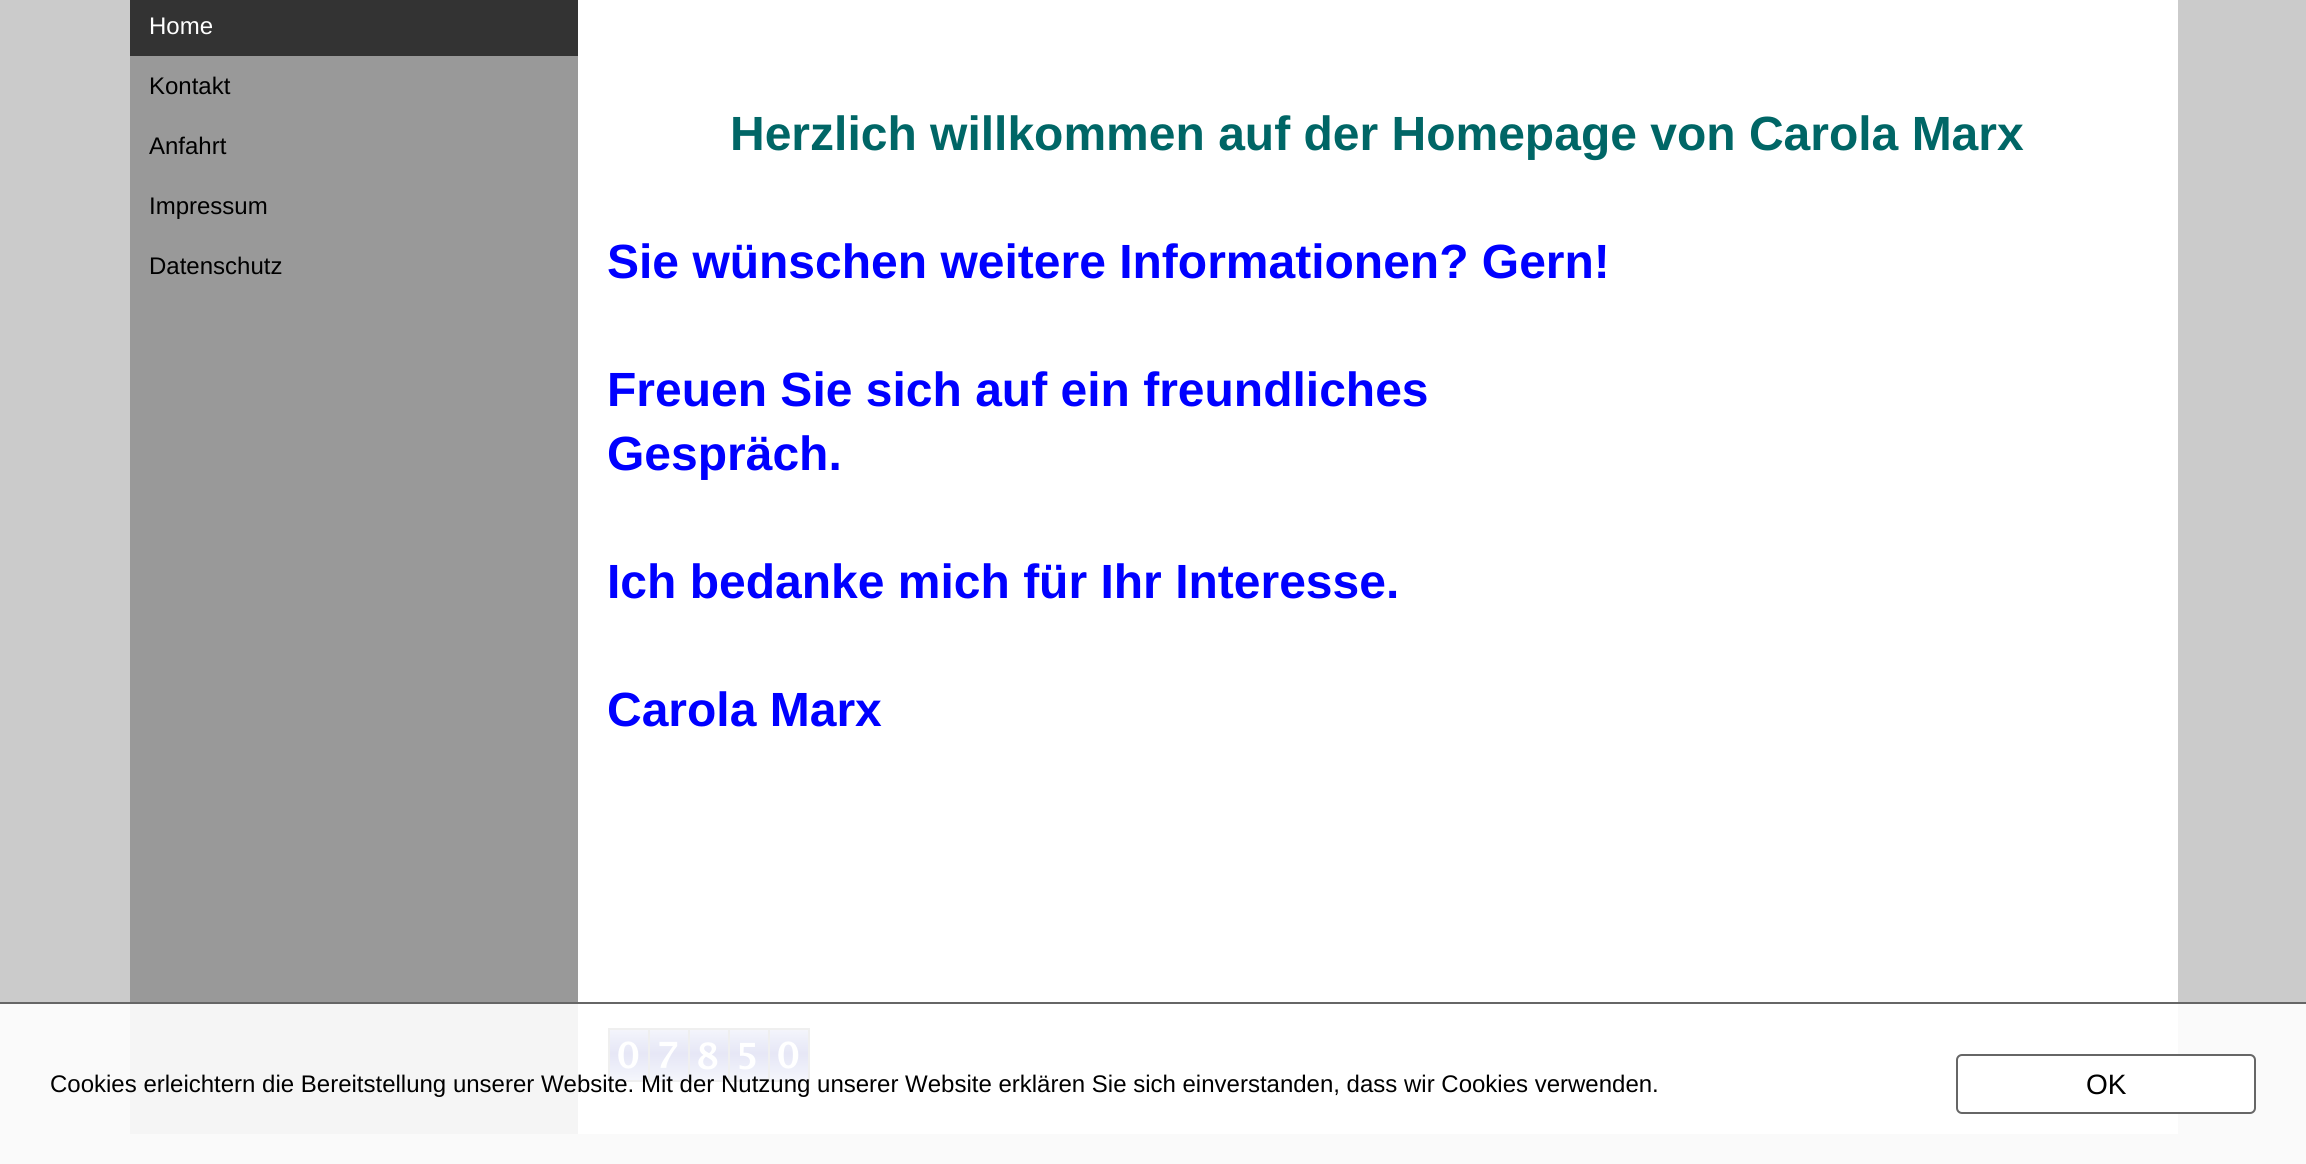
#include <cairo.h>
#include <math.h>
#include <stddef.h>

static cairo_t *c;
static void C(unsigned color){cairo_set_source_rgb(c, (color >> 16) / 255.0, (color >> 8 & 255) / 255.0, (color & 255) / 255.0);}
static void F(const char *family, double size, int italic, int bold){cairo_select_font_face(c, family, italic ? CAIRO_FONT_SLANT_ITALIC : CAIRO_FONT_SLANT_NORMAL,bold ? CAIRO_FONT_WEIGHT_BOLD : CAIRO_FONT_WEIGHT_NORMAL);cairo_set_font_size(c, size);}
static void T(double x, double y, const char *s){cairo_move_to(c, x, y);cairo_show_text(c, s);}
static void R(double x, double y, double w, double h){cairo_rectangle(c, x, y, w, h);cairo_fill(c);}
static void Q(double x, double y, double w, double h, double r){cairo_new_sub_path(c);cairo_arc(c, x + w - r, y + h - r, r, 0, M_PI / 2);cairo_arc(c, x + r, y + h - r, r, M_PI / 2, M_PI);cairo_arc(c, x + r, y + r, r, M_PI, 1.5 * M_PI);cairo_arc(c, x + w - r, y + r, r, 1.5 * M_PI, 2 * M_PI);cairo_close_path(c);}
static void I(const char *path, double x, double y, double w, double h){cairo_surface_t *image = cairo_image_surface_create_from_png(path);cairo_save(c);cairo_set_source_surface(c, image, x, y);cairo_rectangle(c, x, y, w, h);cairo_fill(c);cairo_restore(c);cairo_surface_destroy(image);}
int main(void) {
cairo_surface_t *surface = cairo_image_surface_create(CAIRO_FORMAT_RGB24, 2306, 1164);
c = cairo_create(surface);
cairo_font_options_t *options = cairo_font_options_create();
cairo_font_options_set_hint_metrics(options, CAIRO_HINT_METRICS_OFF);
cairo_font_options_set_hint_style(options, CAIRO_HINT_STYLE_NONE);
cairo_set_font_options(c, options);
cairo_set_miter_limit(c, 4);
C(0xcbcbcb);
cairo_paint(c);
C(0xfafafa);
R(0,1004,2306,160);
C(0x999999);
R(130,56,448,946);
C(0xf5f5f5);
R(130,1004,448,130);
C(0x333333);
R(130,0,448,56);
F("Liberation Sans",24,0,0);
C(0xffffff);
T(149,34,"Home");
C(0x000000);
T(149,94,"Kontakt");
T(149,154,"Anfahrt");
T(149,214,"Impressum");
T(149,274,"Datenschutz");
C(0xffffff);
R(578,0,1600,1002);
R(578,1004,1600,130);
F("Liberation Sans",48,0,1);
C(0x006666);
T(730,150,"Herzlich willkommen auf der Homepage von Carola Marx");
C(0x0000ff);
T(607,278,"Sie wünschen weitere Informationen? Gern!");
T(607,406,"Freuen Sie sich auf ein freundliches");
T(607,470,"Gespräch.");
T(607,598,"Ich bedanke mich für Ihr Interesse.");
T(607,726,"Carola Marx");
I("1.png",608,1028,202,54);
C(0x666666);
R(0,1002,2306,2);
F("Liberation Sans",24,0,0);
C(0x000000);
T(50,1092,"Cookies erleichtern die Bereitstellung unserer Website. Mit der Nutzung unserer Website erklären Sie sich einverstanden, dass wir Cookies verwenden.");
C(0xffffff);
Q(1957,1055,298,58,5);
cairo_fill_preserve(c);
C(0x666666);
cairo_stroke(c);
F("Liberation Sans",28,0,0);
C(0x000000);
T(2086,1094,"OK");
cairo_surface_write_to_png(surface, "o.png");
cairo_font_options_destroy(options);
cairo_destroy(c);
cairo_surface_destroy(surface);
return 0;
}
